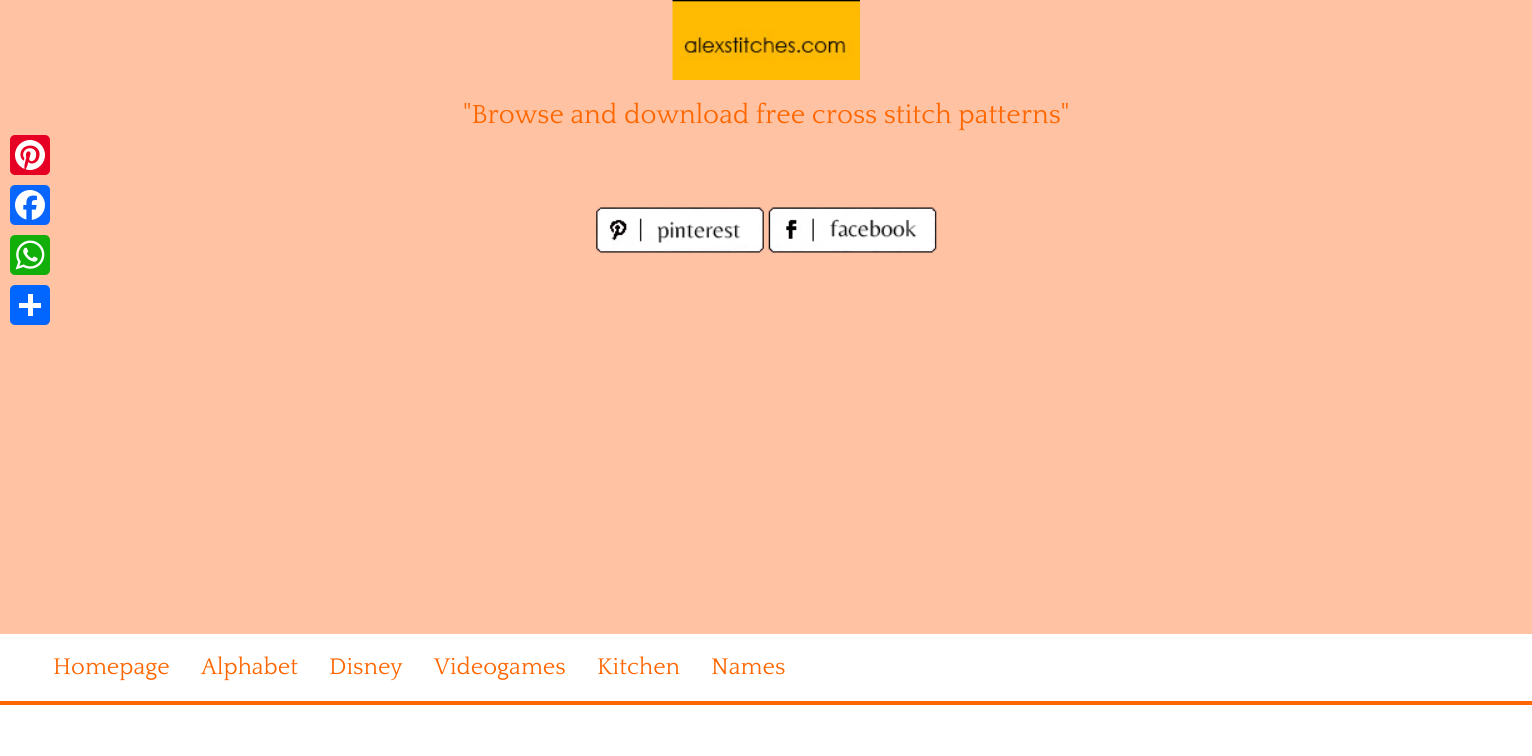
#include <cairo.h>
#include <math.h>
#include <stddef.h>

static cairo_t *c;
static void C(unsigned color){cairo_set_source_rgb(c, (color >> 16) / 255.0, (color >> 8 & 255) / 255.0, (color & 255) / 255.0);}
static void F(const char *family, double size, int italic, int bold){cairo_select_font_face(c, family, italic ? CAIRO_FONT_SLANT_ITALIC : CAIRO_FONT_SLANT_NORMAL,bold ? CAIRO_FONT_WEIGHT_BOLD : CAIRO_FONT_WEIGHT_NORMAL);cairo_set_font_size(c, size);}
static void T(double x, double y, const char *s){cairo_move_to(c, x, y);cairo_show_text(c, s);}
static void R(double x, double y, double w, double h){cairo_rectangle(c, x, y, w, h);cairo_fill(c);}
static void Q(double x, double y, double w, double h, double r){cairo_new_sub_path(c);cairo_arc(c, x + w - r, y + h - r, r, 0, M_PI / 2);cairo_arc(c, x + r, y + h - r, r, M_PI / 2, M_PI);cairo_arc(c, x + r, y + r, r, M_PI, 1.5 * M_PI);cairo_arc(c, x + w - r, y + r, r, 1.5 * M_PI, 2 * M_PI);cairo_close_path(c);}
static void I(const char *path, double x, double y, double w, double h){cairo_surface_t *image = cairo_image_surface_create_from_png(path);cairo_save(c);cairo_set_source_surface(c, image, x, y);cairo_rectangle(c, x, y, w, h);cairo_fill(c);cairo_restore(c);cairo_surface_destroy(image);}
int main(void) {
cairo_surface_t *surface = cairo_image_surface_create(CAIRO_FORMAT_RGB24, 1532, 756);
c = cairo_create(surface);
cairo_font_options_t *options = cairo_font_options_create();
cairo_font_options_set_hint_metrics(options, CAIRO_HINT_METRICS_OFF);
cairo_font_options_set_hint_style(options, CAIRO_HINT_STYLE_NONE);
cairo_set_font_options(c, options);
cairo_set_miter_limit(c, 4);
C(0xffffff);
cairo_paint(c);
C(0xffc2a3);
R(0,0,1532,634);
C(0xe60023);
Q(10,135,40,40,5);
cairo_fill(c);
I("1.png",15,140,30,30);
C(0x0866ff);
Q(10,185,40,40,5);
cairo_fill(c);
I("2.png",15,190,30,30);
C(0x12af0a);
Q(10,235,40,40,5);
cairo_fill(c);
I("3.png",15,240,30,30);
C(0x0166ff);
Q(10,285,40,40,5);
cairo_fill(c);
C(0xffffff);
R(28,294,5,22);
R(19,303,22,5);
I("4.png",672,0,188,80);
F("Quattrocento",27.5,0,0);
C(0xff6600);
T(463,123,"\"Browse and download free cross stitch patterns\"");
I("5.png",596,207,168,46);
I("6.png",768,207,169,46);
R(0,701,1532,4);
F("Quattrocento",23.75,0,0);
T(53,674,"Homepage");
T(201,674,"Alphabet");
T(329,674,"Disney");
T(434,674,"Videogames");
T(597,674,"Kitchen");
T(711,674,"Names");
cairo_surface_write_to_png(surface, "o.png");
cairo_font_options_destroy(options);
cairo_destroy(c);
cairo_surface_destroy(surface);
return 0;
}
